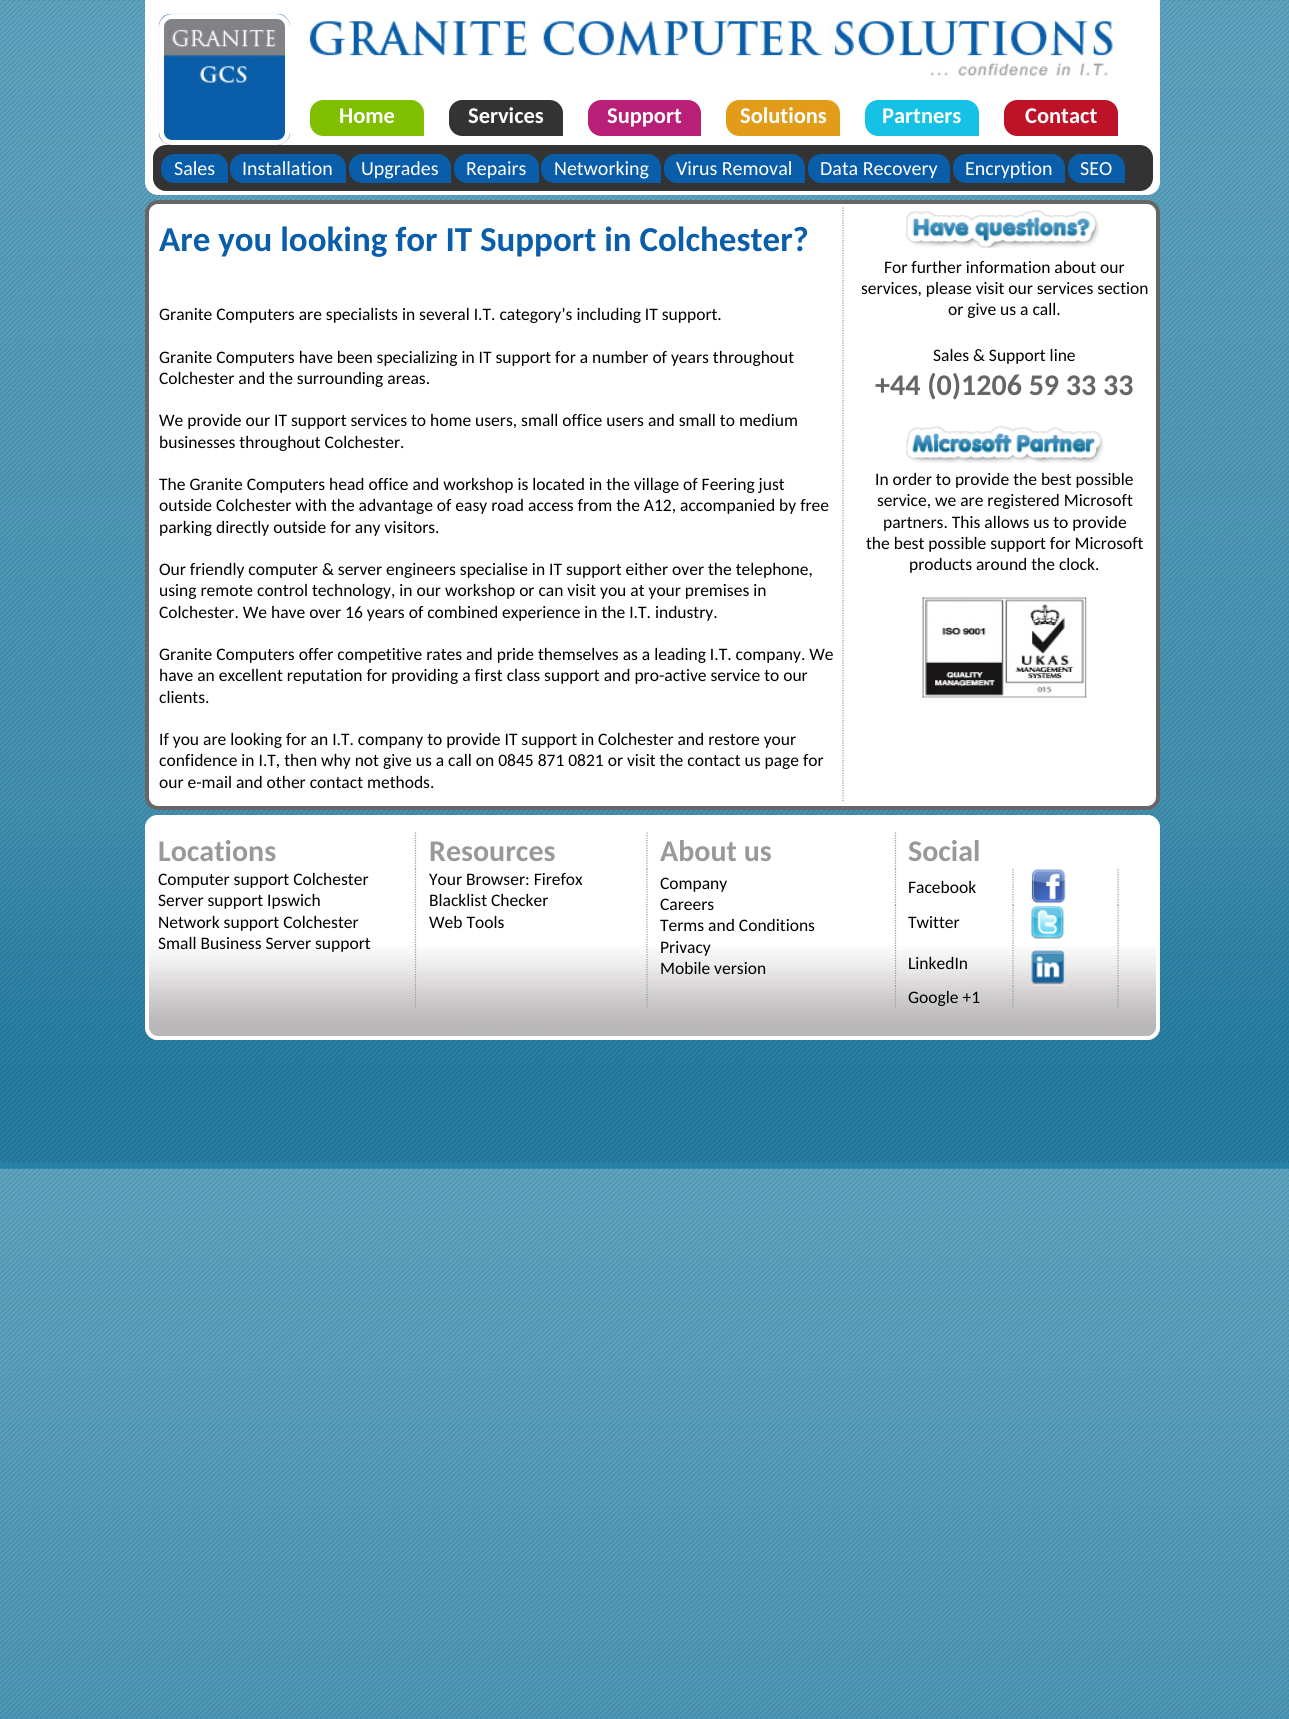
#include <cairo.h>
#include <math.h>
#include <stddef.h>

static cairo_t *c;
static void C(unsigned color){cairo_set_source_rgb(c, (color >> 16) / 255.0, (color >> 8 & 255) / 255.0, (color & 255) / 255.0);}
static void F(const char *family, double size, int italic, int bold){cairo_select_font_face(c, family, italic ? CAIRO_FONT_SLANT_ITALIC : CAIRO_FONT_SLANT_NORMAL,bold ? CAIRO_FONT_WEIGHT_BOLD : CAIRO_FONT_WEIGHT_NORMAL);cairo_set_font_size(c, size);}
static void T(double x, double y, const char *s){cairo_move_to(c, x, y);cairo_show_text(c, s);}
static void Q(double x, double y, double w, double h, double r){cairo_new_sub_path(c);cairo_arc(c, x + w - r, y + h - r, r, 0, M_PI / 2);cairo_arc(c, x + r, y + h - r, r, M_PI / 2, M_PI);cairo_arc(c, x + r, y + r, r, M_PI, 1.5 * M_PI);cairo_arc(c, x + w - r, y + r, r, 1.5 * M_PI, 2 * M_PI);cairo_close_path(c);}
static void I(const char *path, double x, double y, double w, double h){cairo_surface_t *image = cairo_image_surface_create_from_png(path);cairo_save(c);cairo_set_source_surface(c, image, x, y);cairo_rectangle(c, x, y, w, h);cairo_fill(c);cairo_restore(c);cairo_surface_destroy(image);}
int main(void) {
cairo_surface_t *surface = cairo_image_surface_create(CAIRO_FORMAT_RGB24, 1289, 1719);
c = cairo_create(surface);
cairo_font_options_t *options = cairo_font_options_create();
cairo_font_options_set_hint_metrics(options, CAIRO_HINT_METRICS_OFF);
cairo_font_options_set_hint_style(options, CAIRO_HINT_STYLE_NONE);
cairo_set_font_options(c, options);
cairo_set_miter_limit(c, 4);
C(0xffffff);
cairo_paint(c);
I("1.png",0,0,1289,1719);
C(0xffffff);
cairo_new_path(c);
cairo_move_to(c,147,2);
cairo_line_to(c,1158,2);
cairo_line_to(c,1158,182);
cairo_curve_to(c,1158,188,1153,193,1147,193);
cairo_line_to(c,158,193);
cairo_curve_to(c,152,193,147,188,147,182);
cairo_close_path(c);
cairo_fill_preserve(c);
cairo_set_line_width(c,4);
cairo_stroke(c);
I("2.png",158,13,132,132);
Q(161.5,16.5,126,126,10.5);
cairo_set_line_width(c,5);
cairo_stroke(c);
I("3.png",309,20,805,57);
C(0x80be00);
cairo_new_path(c);
cairo_move_to(c,323,100);
cairo_line_to(c,411,100);
cairo_curve_to(c,418,100,424,106,424,113);
cairo_line_to(c,424,136);
cairo_line_to(c,323,136);
cairo_curve_to(c,316,136,310,130,310,123);
cairo_line_to(c,310,113);
cairo_curve_to(c,310,106,316,100,323,100);
cairo_close_path(c);
cairo_fill(c);
F("Carlito",22.5,0,1);
C(0xffffff);
T(339,123,"Home");
C(0x333333);
cairo_new_path(c);
cairo_move_to(c,462,100);
cairo_line_to(c,550,100);
cairo_curve_to(c,557,100,563,106,563,113);
cairo_line_to(c,563,136);
cairo_line_to(c,462,136);
cairo_curve_to(c,455,136,449,130,449,123);
cairo_line_to(c,449,113);
cairo_curve_to(c,449,106,455,100,462,100);
cairo_close_path(c);
cairo_fill(c);
C(0xffffff);
T(468,123,"Services");
C(0xb91f77);
cairo_new_path(c);
cairo_move_to(c,601,100);
cairo_line_to(c,688,100);
cairo_curve_to(c,695,100,701,106,701,113);
cairo_line_to(c,701,136);
cairo_line_to(c,601,136);
cairo_curve_to(c,594,136,588,130,588,123);
cairo_line_to(c,588,113);
cairo_curve_to(c,588,106,594,100,601,100);
cairo_close_path(c);
cairo_fill(c);
C(0xffffff);
T(607,123,"Support");
C(0xe39c1a);
cairo_new_path(c);
cairo_move_to(c,739,100);
cairo_line_to(c,827,100);
cairo_curve_to(c,834,100,840,106,840,113);
cairo_line_to(c,840,136);
cairo_line_to(c,739,136);
cairo_curve_to(c,732,136,726,130,726,123);
cairo_line_to(c,726,113);
cairo_curve_to(c,726,106,732,100,739,100);
cairo_close_path(c);
cairo_fill(c);
C(0xffffff);
T(740,123,"Solutions");
C(0x15c1e5);
cairo_new_path(c);
cairo_move_to(c,878,100);
cairo_line_to(c,966,100);
cairo_curve_to(c,973,100,979,106,979,113);
cairo_line_to(c,979,136);
cairo_line_to(c,878,136);
cairo_curve_to(c,871,136,865,130,865,123);
cairo_line_to(c,865,113);
cairo_curve_to(c,865,106,871,100,878,100);
cairo_close_path(c);
cairo_fill(c);
C(0xffffff);
T(882,123,"Partners");
C(0xbd1227);
cairo_new_path(c);
cairo_move_to(c,1017,100);
cairo_line_to(c,1105,100);
cairo_curve_to(c,1112,100,1118,106,1118,113);
cairo_line_to(c,1118,136);
cairo_line_to(c,1017,136);
cairo_curve_to(c,1010,136,1004,130,1004,123);
cairo_line_to(c,1004,113);
cairo_curve_to(c,1004,106,1010,100,1017,100);
cairo_close_path(c);
cairo_fill(c);
C(0xffffff);
T(1025,123,"Contact");
C(0x333333);
Q(153,145,1000,46,13);
cairo_fill(c);
C(0x0a5ea9);
cairo_new_path(c);
cairo_move_to(c,174,154);
cairo_line_to(c,215,154);
cairo_curve_to(c,222,154,228,160,228,167);
cairo_line_to(c,228,183);
cairo_line_to(c,174,183);
cairo_curve_to(c,167,183,161,177,161,170);
cairo_line_to(c,161,167);
cairo_curve_to(c,161,160,167,154,174,154);
cairo_close_path(c);
cairo_fill(c);
F("Carlito",20,0,0);
C(0xffffff);
T(174,175,"Sales");
C(0x0a5ea9);
cairo_new_path(c);
cairo_move_to(c,243,154);
cairo_line_to(c,333,154);
cairo_curve_to(c,340,154,346,160,346,167);
cairo_line_to(c,346,183);
cairo_line_to(c,243,183);
cairo_curve_to(c,236,183,230,177,230,170);
cairo_line_to(c,230,167);
cairo_curve_to(c,230,160,236,154,243,154);
cairo_close_path(c);
cairo_fill(c);
C(0xffffff);
T(242,175,"Installation");
C(0x0a5ea9);
cairo_new_path(c);
cairo_move_to(c,362,154);
cairo_line_to(c,438,154);
cairo_curve_to(c,445,154,451,160,451,167);
cairo_line_to(c,451,183);
cairo_line_to(c,362,183);
cairo_curve_to(c,355,183,349,177,349,170);
cairo_line_to(c,349,167);
cairo_curve_to(c,349,160,355,154,362,154);
cairo_close_path(c);
cairo_fill(c);
C(0xffffff);
T(361,175,"Upgrades");
C(0x0a5ea9);
cairo_new_path(c);
cairo_move_to(c,467,154);
cairo_line_to(c,526,154);
cairo_curve_to(c,533,154,539,160,539,167);
cairo_line_to(c,539,183);
cairo_line_to(c,467,183);
cairo_curve_to(c,460,183,454,177,454,170);
cairo_line_to(c,454,167);
cairo_curve_to(c,454,160,460,154,467,154);
cairo_close_path(c);
cairo_fill(c);
C(0xffffff);
T(466,175,"Repairs");
C(0x0a5ea9);
cairo_new_path(c);
cairo_move_to(c,554,154);
cairo_line_to(c,648,154);
cairo_curve_to(c,655,154,661,160,661,167);
cairo_line_to(c,661,183);
cairo_line_to(c,554,183);
cairo_curve_to(c,547,183,541,177,541,170);
cairo_line_to(c,541,167);
cairo_curve_to(c,541,160,547,154,554,154);
cairo_close_path(c);
cairo_fill(c);
C(0xffffff);
T(554,175,"Networking");
C(0x0a5ea9);
cairo_new_path(c);
cairo_move_to(c,677,154);
cairo_line_to(c,792,154);
cairo_curve_to(c,799,154,805,160,805,167);
cairo_line_to(c,805,183);
cairo_line_to(c,677,183);
cairo_curve_to(c,670,183,664,177,664,170);
cairo_line_to(c,664,167);
cairo_curve_to(c,664,160,670,154,677,154);
cairo_close_path(c);
cairo_fill(c);
C(0xffffff);
T(676,175,"Virus Removal");
C(0x0a5ea9);
cairo_new_path(c);
cairo_move_to(c,821,154);
cairo_line_to(c,937,154);
cairo_curve_to(c,944,154,950,160,950,167);
cairo_line_to(c,950,183);
cairo_line_to(c,821,183);
cairo_curve_to(c,814,183,808,177,808,170);
cairo_line_to(c,808,167);
cairo_curve_to(c,808,160,814,154,821,154);
cairo_close_path(c);
cairo_fill(c);
C(0xffffff);
T(820,175,"Data Recovery");
C(0x0a5ea9);
cairo_new_path(c);
cairo_move_to(c,966,154);
cairo_line_to(c,1052,154);
cairo_curve_to(c,1059,154,1065,160,1065,167);
cairo_line_to(c,1065,183);
cairo_line_to(c,966,183);
cairo_curve_to(c,959,183,953,177,953,170);
cairo_line_to(c,953,167);
cairo_curve_to(c,953,160,959,154,966,154);
cairo_close_path(c);
cairo_fill(c);
C(0xffffff);
T(965,175,"Encryption");
C(0x0a5ea9);
cairo_new_path(c);
cairo_move_to(c,1081,154);
cairo_line_to(c,1112,154);
cairo_curve_to(c,1119,154,1125,160,1125,167);
cairo_line_to(c,1125,183);
cairo_line_to(c,1081,183);
cairo_curve_to(c,1074,183,1068,177,1068,170);
cairo_line_to(c,1068,167);
cairo_curve_to(c,1068,160,1074,154,1081,154);
cairo_close_path(c);
cairo_fill(c);
C(0xffffff);
T(1080,175,"SEO");
Q(147,202,1011,606,11);
cairo_fill_preserve(c);
C(0x666666);
cairo_set_line_width(c,4);
cairo_stroke(c);
F("Carlito",35,0,1);
C(0x0a5ea9);
T(159,251,"Are you looking for IT Support in Colchester?");
F("Carlito",17.5,0,0);
C(0x000000);
T(159,320,"Granite Computers are specialists in several I.T. category’s including IT support.");
T(159,363,"Granite Computers have been specializing in IT support for a number of years throughout");
T(159,384,"Colchester and the surrounding areas.");
T(159,426,"We provide our IT support services to home users, small office users and small to medium");
T(159,448,"businesses throughout Colchester.");
T(159,490,"The Granite Computers head office and workshop is located in the village of Feering just");
T(159,511,"outside Colchester with the advantage of easy road access from the A12, accompanied by free");
T(159,533,"parking directly outside for any visitors.");
T(159,575,"Our friendly computer & server engineers specialise in IT support either over the telephone,");
T(159,596,"using remote control technology, in our workshop or can visit you at your premises in");
T(159,618,"Colchester. We have over 16 years of combined experience in the I.T. industry.");
T(159,660,"Granite Computers offer competitive rates and pride themselves as a leading I.T. company. We");
T(159,681,"have an excellent reputation for providing a first class support and pro-active service to our");
T(159,703,"clients.");
T(159,745,"If you are looking for an I.T. company to provide IT support in Colchester and restore your");
T(159,766,"confidence in I.T, then why not give us a call on 0845 871 0821 or visit the contact us page for");
T(159,788,"our e-mail and other contact methods.");
cairo_new_path(c);
cairo_move_to(c,843,207.5);
cairo_line_to(c,843,802.5);
C(0x999999);
cairo_set_line_width(c,1.2);
cairo_set_dash(c,(double[]){1.25,1.25},2,0);
cairo_stroke(c);
I("4.png",906,210,194,38);
C(0x000000);
T(884,273,"For further information about our");
T(861,294,"services, please visit our services section");
T(948,315,"or give us a call.");
T(933,361,"Sales & Support line");
F("Carlito",30,0,1);
C(0x666666);
T(875,395,"+44 (0)1206 59 33 33");
I("5.png",906,426,198,37);
F("Carlito",17.5,0,0);
C(0x000000);
T(875,485,"In order to provide the best possible");
T(877,506,"service, we are registered Microsoft");
T(883,528,"partners. This allows us to provide");
T(866,549,"the best possible support for Microsoft");
T(909,570,"products around the clock.");
I("6.png",922,597,165,101);
C(0xffffff);
Q(145,815,1015,225,13);
cairo_fill(c);
I("7.png",145,946,1015,94);
Q(147,817,1011,221,11);
cairo_set_line_width(c,4);
cairo_set_dash(c,NULL,0,0);
cairo_stroke(c);
F("Carlito",30,0,1);
C(0x999999);
T(158,861,"Locations");
cairo_new_path(c);
cairo_move_to(c,415.5,832.5);
cairo_line_to(c,415.5,869);
cairo_set_line_width(c,1.2);
cairo_set_dash(c,(double[]){1.25,1.25},2,0);
cairo_stroke(c);
T(429,861,"Resources");
cairo_new_path(c);
cairo_move_to(c,647,832.5);
cairo_line_to(c,647,869);
cairo_stroke(c);
T(660,861,"About us");
cairo_new_path(c);
cairo_move_to(c,895.5,832.5);
cairo_line_to(c,895.5,869);
cairo_stroke(c);
T(908,861,"Social");
F("Carlito",17.5,0,0);
C(0x000000);
T(158,885,"Computer support Colchester");
T(158,906,"Server support Ipswich");
T(158,928,"Network support Colchester");
T(158,949,"Small Business Server support");
cairo_new_path(c);
cairo_move_to(c,415.5,869);
cairo_line_to(c,415.5,1007.5);
C(0x999999);
cairo_stroke(c);
C(0x000000);
T(429,885,"Your Browser: Firefox");
T(429,906,"Blacklist Checker");
T(429,928,"Web Tools");
cairo_new_path(c);
cairo_move_to(c,647,869);
cairo_line_to(c,647,1007.5);
C(0x999999);
cairo_stroke(c);
C(0x000000);
T(660,889,"Company");
T(660,910,"Careers");
T(660,931,"Terms and Conditions");
T(660,953,"Privacy");
T(660,974,"Mobile version");
cairo_new_path(c);
cairo_move_to(c,895.5,869);
cairo_line_to(c,895.5,905);
C(0x999999);
cairo_stroke(c);
C(0x000000);
T(908,893,"Facebook");
cairo_new_path(c);
cairo_move_to(c,1013,869);
cairo_line_to(c,1013,905);
C(0x999999);
cairo_stroke(c);
I("8.png",1031,868,35,36);
cairo_new_path(c);
cairo_move_to(c,1118,869);
cairo_line_to(c,1118,905);
cairo_stroke(c);
cairo_new_path(c);
cairo_move_to(c,895.5,905);
cairo_line_to(c,895.5,940);
cairo_stroke(c);
C(0x000000);
T(908,928,"Twitter");
cairo_new_path(c);
cairo_move_to(c,1013,905);
cairo_line_to(c,1013,940);
C(0x999999);
cairo_stroke(c);
I("9.png",1031,906,33,33);
cairo_new_path(c);
cairo_move_to(c,1118,905);
cairo_line_to(c,1118,940);
cairo_stroke(c);
cairo_new_path(c);
cairo_move_to(c,895.5,940);
cairo_line_to(c,895.5,986);
cairo_stroke(c);
C(0x000000);
T(908,969,"LinkedIn");
cairo_new_path(c);
cairo_move_to(c,1013,940);
cairo_line_to(c,1013,986);
C(0x999999);
cairo_stroke(c);
I("10.png",1030,950,36,36);
cairo_new_path(c);
cairo_move_to(c,1118,940);
cairo_line_to(c,1118,986);
cairo_stroke(c);
cairo_new_path(c);
cairo_move_to(c,895.5,986);
cairo_line_to(c,895.5,1007.5);
cairo_stroke(c);
C(0x000000);
T(908,1003,"Google +1");
cairo_new_path(c);
cairo_move_to(c,1013,986);
cairo_line_to(c,1013,1007.5);
C(0x999999);
cairo_stroke(c);
cairo_new_path(c);
cairo_move_to(c,1118,986);
cairo_line_to(c,1118,1007.5);
cairo_stroke(c);
cairo_surface_write_to_png(surface, "o.png");
cairo_font_options_destroy(options);
cairo_destroy(c);
cairo_surface_destroy(surface);
return 0;
}
